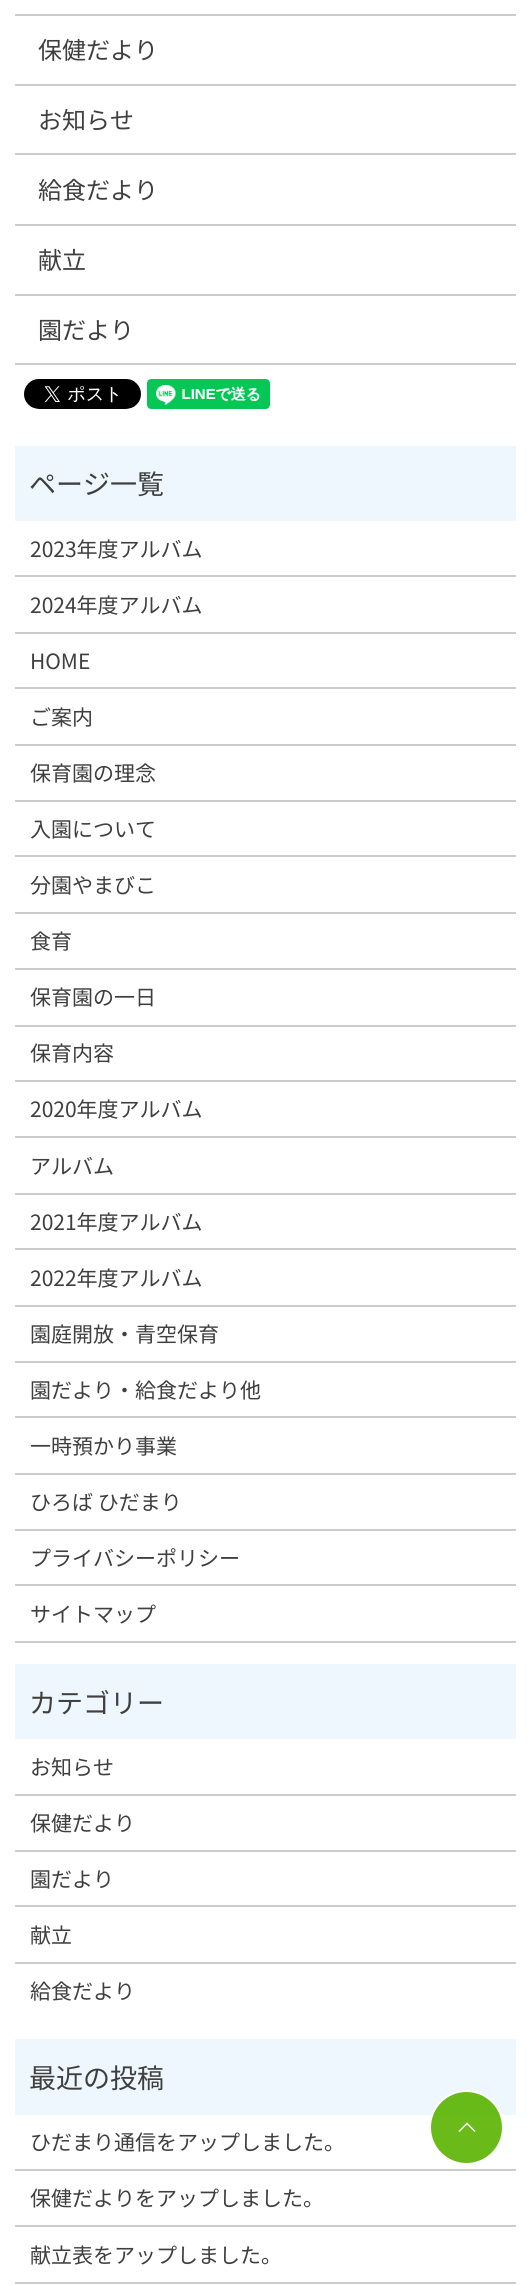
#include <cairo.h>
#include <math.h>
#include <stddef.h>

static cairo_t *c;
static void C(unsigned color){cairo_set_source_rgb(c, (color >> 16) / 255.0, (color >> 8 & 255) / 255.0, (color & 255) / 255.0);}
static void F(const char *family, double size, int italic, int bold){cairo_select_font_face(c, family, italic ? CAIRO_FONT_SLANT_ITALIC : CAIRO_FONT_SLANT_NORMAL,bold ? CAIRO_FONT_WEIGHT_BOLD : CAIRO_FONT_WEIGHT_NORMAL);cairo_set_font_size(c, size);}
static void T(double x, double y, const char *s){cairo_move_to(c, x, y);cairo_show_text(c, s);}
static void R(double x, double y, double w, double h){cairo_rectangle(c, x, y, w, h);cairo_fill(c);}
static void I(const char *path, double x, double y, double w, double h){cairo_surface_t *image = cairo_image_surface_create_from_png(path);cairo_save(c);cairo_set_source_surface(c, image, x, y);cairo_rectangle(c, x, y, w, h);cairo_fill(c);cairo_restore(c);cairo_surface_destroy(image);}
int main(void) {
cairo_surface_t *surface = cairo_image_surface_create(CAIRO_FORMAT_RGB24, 530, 2286);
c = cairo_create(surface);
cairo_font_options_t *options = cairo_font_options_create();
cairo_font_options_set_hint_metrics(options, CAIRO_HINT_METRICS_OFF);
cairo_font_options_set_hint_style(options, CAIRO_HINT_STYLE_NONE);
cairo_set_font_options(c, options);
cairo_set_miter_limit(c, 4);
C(0xffffff);
cairo_paint(c);
C(0xcccccc);
R(15,14,501,2);
R(15,84,501,2);
F("Noto Sans JP",24,0,0);
C(0x3f3f3f);
T(38,59,"保健だより");
C(0xcccccc);
R(15,153,501,2);
C(0x3f3f3f);
T(38,129,"お知らせ");
C(0xcccccc);
R(15,224,501,2);
C(0x3f3f3f);
T(38,199,"給食だより");
C(0xcccccc);
R(15,294,501,2);
C(0x3f3f3f);
T(38,269,"献立");
C(0xcccccc);
R(15,363,501,2);
C(0x3f3f3f);
T(38,339,"園だより");
I("1.png",24,379,117,30);
I("2.png",147,379,123,30);
C(0xedf7fd);
R(15,446,501,75);
F("Noto Sans JP",27,0,0);
C(0x3f3f3f);
T(29,494,"ページ一覧");
C(0xcccccc);
R(15,575,501,2);
F("Noto Sans JP",21,0,0);
C(0x3f3f3f);
T(30,557,"2023年度アルバム");
C(0xcccccc);
R(15,632,501,2);
C(0x3f3f3f);
T(30,613,"2024年度アルバム");
C(0xcccccc);
R(15,687,501,2);
C(0x3f3f3f);
T(30,669,"HOME");
C(0xcccccc);
R(15,744,501,2);
C(0x3f3f3f);
T(30,725,"ご案内");
C(0xcccccc);
R(15,800,501,2);
C(0x3f3f3f);
T(30,781,"保育園の理念");
C(0xcccccc);
R(15,855,501,2);
C(0x3f3f3f);
T(30,837,"入園について");
C(0xcccccc);
R(15,912,501,2);
C(0x3f3f3f);
T(30,893,"分園やまびこ");
C(0xcccccc);
R(15,968,501,2);
C(0x3f3f3f);
T(30,949,"食育");
C(0xcccccc);
R(15,1025,501,2);
C(0x3f3f3f);
T(30,1005,"保育園の一日");
C(0xcccccc);
R(15,1080,501,2);
C(0x3f3f3f);
T(30,1061,"保育内容");
C(0xcccccc);
R(15,1136,501,2);
C(0x3f3f3f);
T(30,1117,"2020年度アルバム");
C(0xcccccc);
R(15,1193,501,2);
C(0x3f3f3f);
T(30,1174,"アルバム");
C(0xcccccc);
R(15,1248,501,2);
C(0x3f3f3f);
T(30,1230,"2021年度アルバム");
C(0xcccccc);
R(15,1305,501,2);
C(0x3f3f3f);
T(30,1286,"2022年度アルバム");
C(0xcccccc);
R(15,1361,501,2);
C(0x3f3f3f);
T(30,1342,"園庭開放・青空保育");
C(0xcccccc);
R(15,1416,501,2);
C(0x3f3f3f);
T(30,1398,"園だより・給食だより他");
C(0xcccccc);
R(15,1473,501,2);
C(0x3f3f3f);
T(30,1454,"一時預かり事業");
C(0xcccccc);
R(15,1529,501,2);
C(0x3f3f3f);
T(30,1510,"ひろば ひだまり");
C(0xcccccc);
R(15,1584,501,2);
C(0x3f3f3f);
T(30,1566,"プライバシーポリシー");
C(0xcccccc);
R(15,1641,501,2);
C(0x3f3f3f);
T(30,1622,"サイトマップ");
C(0xedf7fd);
R(15,1664,501,75);
F("Noto Sans JP",27,0,0);
C(0x3f3f3f);
T(29,1713,"カテゴリー");
C(0xcccccc);
R(15,1794,501,2);
F("Noto Sans JP",21,0,0);
C(0x3f3f3f);
T(30,1775,"お知らせ");
C(0xcccccc);
R(15,1850,501,2);
C(0x3f3f3f);
T(30,1831,"保健だより");
C(0xcccccc);
R(15,1905,501,2);
C(0x3f3f3f);
T(30,1887,"園だより");
C(0xcccccc);
R(15,1962,501,2);
C(0x3f3f3f);
T(30,1943,"献立");
T(30,1999,"給食だより");
C(0xedf7fd);
R(15,2039,501,76);
F("Noto Sans JP",27,0,0);
C(0x3f3f3f);
T(29,2088,"最近の投稿");
C(0xcccccc);
R(15,2169,501,2);
F("Noto Sans JP",21,0,0);
C(0x3f3f3f);
T(30,2150,"ひだまり通信をアップしました。");
C(0xcccccc);
R(15,2225,501,2);
C(0x3f3f3f);
T(30,2206,"保健だよりをアップしました。");
C(0xcccccc);
R(15,2282,501,2);
C(0x3f3f3f);
T(30,2263,"献立表をアップしました。");
cairo_set_source_rgba(c,0.353,0.706,0,0.9);
cairo_new_path(c);
cairo_arc(c,466.5,2127.5,36.5,0,2 * M_PI);
cairo_fill_preserve(c);
C(0xffffff);
cairo_stroke(c);
cairo_new_path(c);
cairo_move_to(c,467,2122.5);
cairo_line_to(c,475.5,2131);
cairo_line_to(c,474.5,2132);
cairo_line_to(c,466,2123.5);
cairo_close_path(c);
cairo_fill(c);
cairo_new_path(c);
cairo_move_to(c,467,2122.5);
cairo_line_to(c,468,2123.5);
cairo_line_to(c,459.5,2132);
cairo_line_to(c,458.5,2131);
cairo_close_path(c);
cairo_fill(c);
cairo_surface_write_to_png(surface, "o.png");
cairo_font_options_destroy(options);
cairo_destroy(c);
cairo_surface_destroy(surface);
return 0;
}
